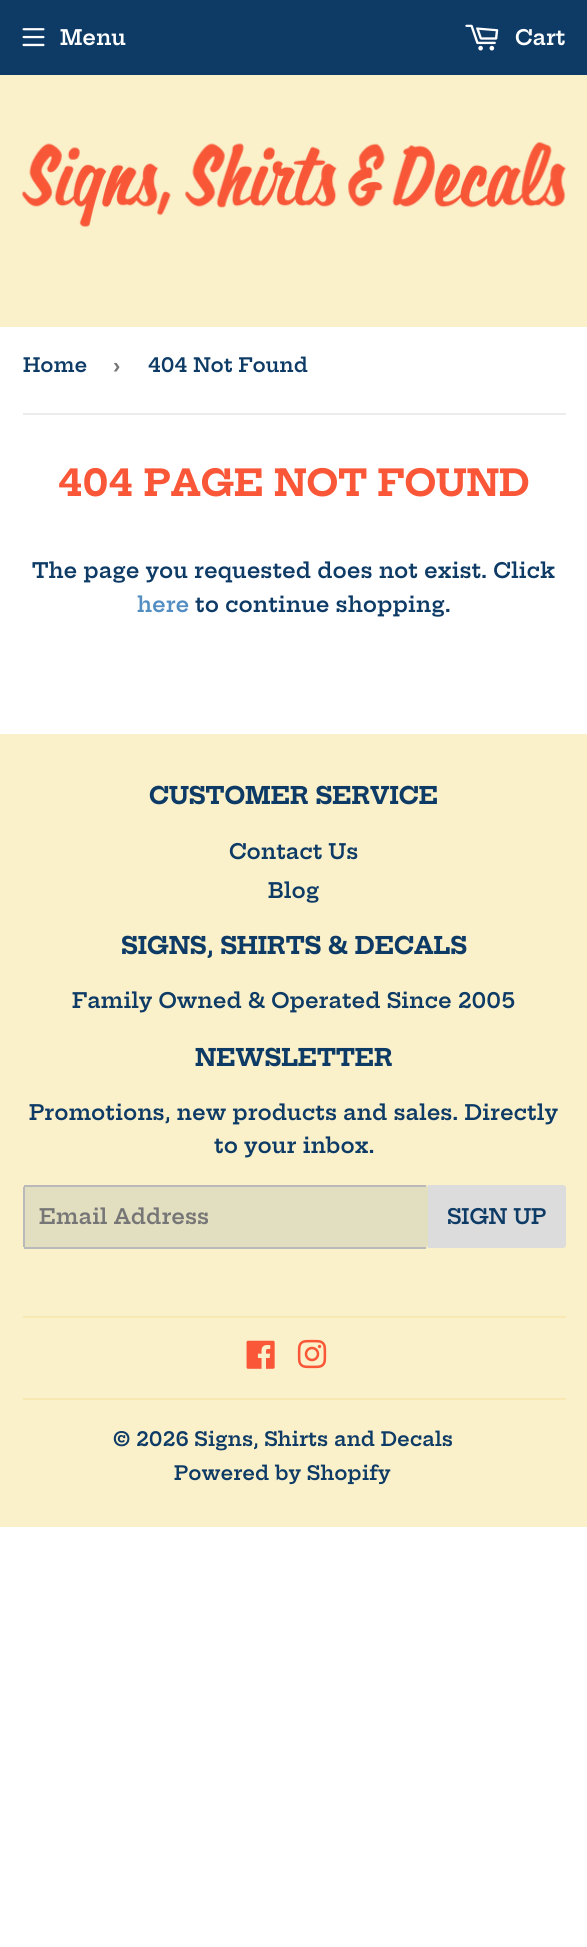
#include <cairo.h>
#include <math.h>
#include <stddef.h>

static cairo_t *c;
static void C(unsigned color){cairo_set_source_rgb(c, (color >> 16) / 255.0, (color >> 8 & 255) / 255.0, (color & 255) / 255.0);}
static void F(const char *family, double size, int italic, int bold){cairo_select_font_face(c, family, italic ? CAIRO_FONT_SLANT_ITALIC : CAIRO_FONT_SLANT_NORMAL,bold ? CAIRO_FONT_WEIGHT_BOLD : CAIRO_FONT_WEIGHT_NORMAL);cairo_set_font_size(c, size);}
static void T(double x, double y, const char *s){cairo_move_to(c, x, y);cairo_show_text(c, s);}
static void R(double x, double y, double w, double h){cairo_rectangle(c, x, y, w, h);cairo_fill(c);}
static void Q(double x, double y, double w, double h, double r){cairo_new_sub_path(c);cairo_arc(c, x + w - r, y + h - r, r, 0, M_PI / 2);cairo_arc(c, x + r, y + h - r, r, M_PI / 2, M_PI);cairo_arc(c, x + r, y + r, r, M_PI, 1.5 * M_PI);cairo_arc(c, x + w - r, y + r, r, 1.5 * M_PI, 2 * M_PI);cairo_close_path(c);}
static void I(const char *path, double x, double y, double w, double h){cairo_surface_t *image = cairo_image_surface_create_from_png(path);cairo_save(c);cairo_set_source_surface(c, image, x, y);cairo_rectangle(c, x, y, w, h);cairo_fill(c);cairo_restore(c);cairo_surface_destroy(image);}
int main(void) {
cairo_surface_t *surface = cairo_image_surface_create(CAIRO_FORMAT_RGB24, 587, 1947);
c = cairo_create(surface);
cairo_font_options_t *options = cairo_font_options_create();
cairo_font_options_set_hint_metrics(options, CAIRO_HINT_METRICS_OFF);
cairo_font_options_set_hint_style(options, CAIRO_HINT_STYLE_NONE);
cairo_set_font_options(c, options);
cairo_set_miter_limit(c, 4);
C(0xffffff);
cairo_paint(c);
C(0x0d3b66);
R(0,0,587,75);
I("1.png",22,28,23,19);
F("Hepta Slab SemiBold",21,0,0);
C(0xffffff);
T(60,45,"Menu");
I("2.png",465,24,34,27);
T(515,45,"Cart");
C(0xfaf0ca);
R(0,75,587,252);
I("3.png",22,142,544,85);
C(0xececec);
R(23,413,543,2);
F("Hepta Slab SemiBold",19.5,0,0);
C(0x0d3b66);
T(23,372,"Home");
F("Liberation Sans",22,0,1);
C(0x767676);
T(113,373,"›");
F("Hepta Slab SemiBold",19.5,0,0);
C(0x0d3b66);
T(148,372,"404 Not Found");
F("Hepta Slab",36.4,0,1);
C(0xf95738);
T(58,496,"404 PAGE NOT FOUND");
F("Hepta Slab SemiBold",21,0,0);
C(0x0d3b66);
T(32,578,"The page you requested does not exist. Click");
C(0x528ec1);
T(137,612,"here");
C(0x0d3b66);
T(195,612,"to continue shopping.");
C(0xfaf0ca);
R(0,734,587,793);
F("Hepta Slab",23.75,0,1);
C(0x0d3b66);
T(149,804,"CUSTOMER SERVICE");
F("Hepta Slab SemiBold",21,0,0);
T(229,859,"Contact Us");
T(268,898,"Blog");
F("Hepta Slab",23.75,0,1);
T(121,954,"SIGNS, SHIRTS & DECALS");
F("Hepta Slab SemiBold",21,0,0);
T(72,1008,"Family Owned & Operated Since 2005");
F("Hepta Slab",23.75,0,1);
T(195,1066,"NEWSLETTER");
F("Hepta Slab SemiBold",21,0,0);
T(29,1120,"Promotions, new products and sales. Directly");
T(214,1153,"to your inbox.");
C(0xe2dec0);
Q(23,1185,405,63,3);
cairo_fill(c);
C(0xb9b9b9);
R(24,1185,402,2);
R(24,1247,402,2);
R(23,1187,2,60);
C(0x767676);
T(39,1224,"Email Address");
C(0xdcdcdc);
cairo_new_path(c);
cairo_move_to(c,428,1185);
cairo_line_to(c,563,1185);
cairo_curve_to(c,564.5,1185,566,1186.5,566,1188);
cairo_line_to(c,566,1245);
cairo_curve_to(c,566,1246.5,564.5,1248,563,1248);
cairo_line_to(c,428,1248);
cairo_close_path(c);
cairo_fill(c);
C(0x0d3b66);
T(447,1224,"SIGN UP");
C(0xf8e9b3);
R(23,1316,543,2);
I("4.png",246,1340,29,29);
I("5.png",297,1339,30,30);
R(23,1398,543,2);
F("Hepta Slab SemiBold",19.5,0,0);
C(0x0d3b66);
T(113,1446,"© 2026 Signs, Shirts and Decals");
T(174,1480,"Powered by Shopify");
cairo_surface_write_to_png(surface, "o.png");
cairo_font_options_destroy(options);
cairo_destroy(c);
cairo_surface_destroy(surface);
return 0;
}
